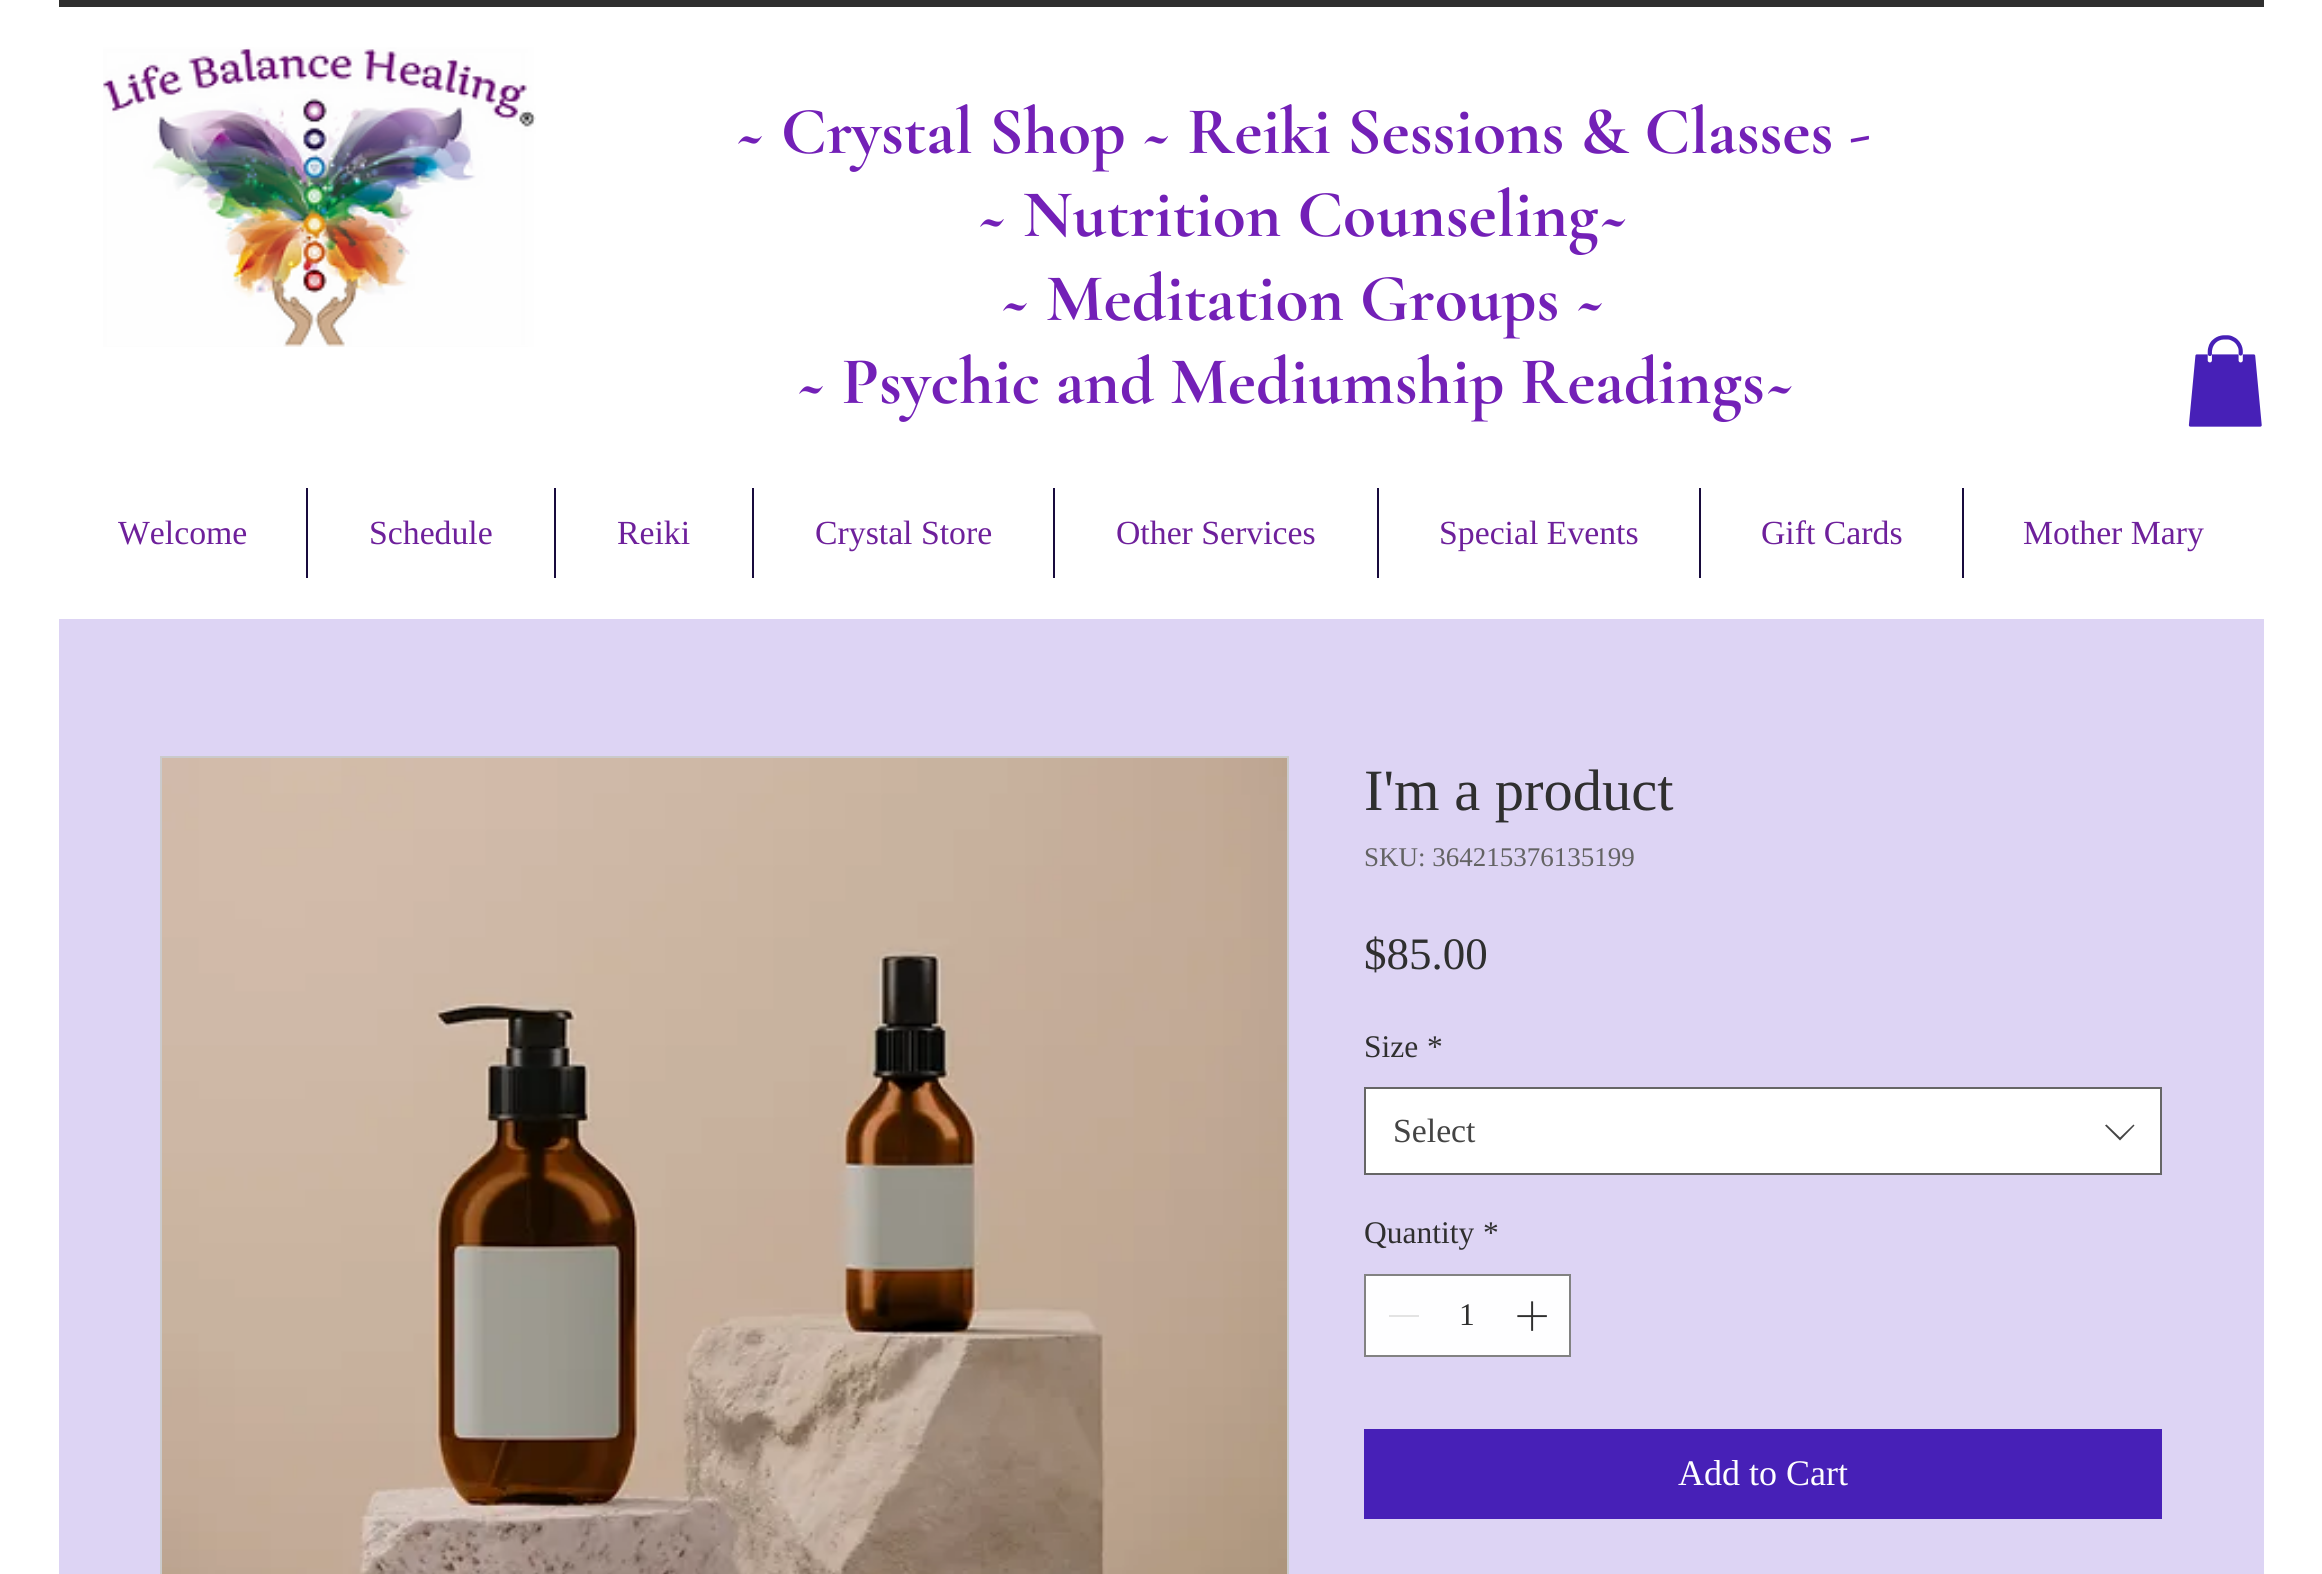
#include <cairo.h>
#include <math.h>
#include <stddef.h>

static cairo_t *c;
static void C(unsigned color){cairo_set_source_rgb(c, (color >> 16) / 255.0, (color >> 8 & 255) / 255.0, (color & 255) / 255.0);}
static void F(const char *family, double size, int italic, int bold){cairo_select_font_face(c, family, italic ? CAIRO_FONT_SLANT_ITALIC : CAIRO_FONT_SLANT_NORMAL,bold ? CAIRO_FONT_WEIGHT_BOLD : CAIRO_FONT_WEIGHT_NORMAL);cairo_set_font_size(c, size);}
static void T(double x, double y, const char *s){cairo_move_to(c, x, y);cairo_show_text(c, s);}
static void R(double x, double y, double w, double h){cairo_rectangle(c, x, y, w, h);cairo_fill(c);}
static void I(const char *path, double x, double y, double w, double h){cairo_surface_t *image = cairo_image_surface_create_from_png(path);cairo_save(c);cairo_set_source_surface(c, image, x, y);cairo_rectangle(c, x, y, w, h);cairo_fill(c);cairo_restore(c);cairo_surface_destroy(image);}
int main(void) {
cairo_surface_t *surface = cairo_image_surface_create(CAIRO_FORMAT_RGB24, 2322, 1574);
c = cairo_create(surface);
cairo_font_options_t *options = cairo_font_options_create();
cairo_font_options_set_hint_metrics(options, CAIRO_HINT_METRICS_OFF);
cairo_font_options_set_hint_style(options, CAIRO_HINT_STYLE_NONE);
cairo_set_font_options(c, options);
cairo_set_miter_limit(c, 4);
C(0xffffff);
cairo_paint(c);
C(0x2f2f2f);
R(59,0,2205,7);
I("1.png",103,47,433,300);
F("Cormorant Garamond",67.5,0,1);
C(0x7320b7);
T(735,153,"~ Crystal Shop ~ Reiki Sessions & Classes -");
T(977,236,"~ Nutrition Counseling~");
T(1000,320,"~ Meditation Groups ~");
T(796,403,"~ Psychic and Mediumship Readings~");
I("2.png",2188,335,74,92);
F("Liberation Serif",33.75,0,0);
C(0x6e209b);
T(118,544,"Welcome");
C(0x180b3d);
R(306,488,2,90);
C(0x6e209b);
T(369,544,"Schedule");
C(0x180b3d);
R(554,488,2,90);
C(0x6e209b);
T(617,544,"Reiki");
C(0x180b3d);
R(752,488,2,90);
C(0x6e209b);
T(815,544,"Crystal Store");
C(0x180b3d);
R(1053,488,2,90);
C(0x6e209b);
T(1116,544,"Other Services");
C(0x180b3d);
R(1377,488,2,90);
C(0x6e209b);
T(1439,544,"Special Events");
C(0x180b3d);
R(1699,488,2,90);
C(0x6e209b);
T(1761,544,"Gift Cards");
C(0x180b3d);
R(1962,488,2,90);
C(0x6e209b);
T(2023,544,"Mother Mary");
C(0xddd4f4);
R(59,619,2205,955);
cairo_rectangle(c,161,757,1127,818);
C(0xcacacb);
cairo_stroke(c);
I("3.png",162,758,1125,816);
F("Liberation Serif",58.5,0,0);
C(0x2f2f2f);
T(1364,810,"I'm a product");
F("Liberation Serif",27,0,0);
C(0x636363);
T(1364,866,"SKU: 364215376135199");
F("Liberation Serif",45,0,0);
C(0x2f2f2f);
T(1364,969,"$85.00");
F("Liberation Serif",31.5,0,0);
T(1364,1057,"Size");
T(1427,1057,"*");
C(0xffffff);
cairo_rectangle(c,1365,1088,796,86);
cairo_fill_preserve(c);
C(0x666666);
cairo_stroke(c);
F("Liberation Serif",33.75,0,0);
C(0x444444);
T(1393,1142,"Select");
cairo_set_fill_rule(c,CAIRO_FILL_RULE_EVEN_ODD);
cairo_new_path(c);
cairo_move_to(c,2133.5,1124.5);
cairo_line_to(c,2134.5,1125.5);
cairo_line_to(c,2120,1140.5);
cairo_line_to(c,2105,1125.5);
cairo_line_to(c,2106.5,1124.5);
cairo_line_to(c,2120,1137.5);
cairo_close_path(c);
cairo_fill(c);
F("Liberation Serif",31.5,0,0);
C(0x2f2f2f);
T(1364,1243,"Quantity");
T(1483,1243,"*");
C(0xfefeff);
cairo_rectangle(c,1365,1275,205,81);
cairo_fill_preserve(c);
C(0x828282);
cairo_stroke(c);
C(0xe3e3e3);
R(1389,1315,30,2);
C(0x2f2f2f);
T(1459,1325,"1");
I("4.png",1517,1301,30,30);
C(0x4720b7);
R(1364,1429,798,90);
F("Liberation Serif",36,0,0);
C(0xfefeff);
T(1678,1485,"Add to Cart");
cairo_surface_write_to_png(surface, "o.png");
cairo_font_options_destroy(options);
cairo_destroy(c);
cairo_surface_destroy(surface);
return 0;
}
